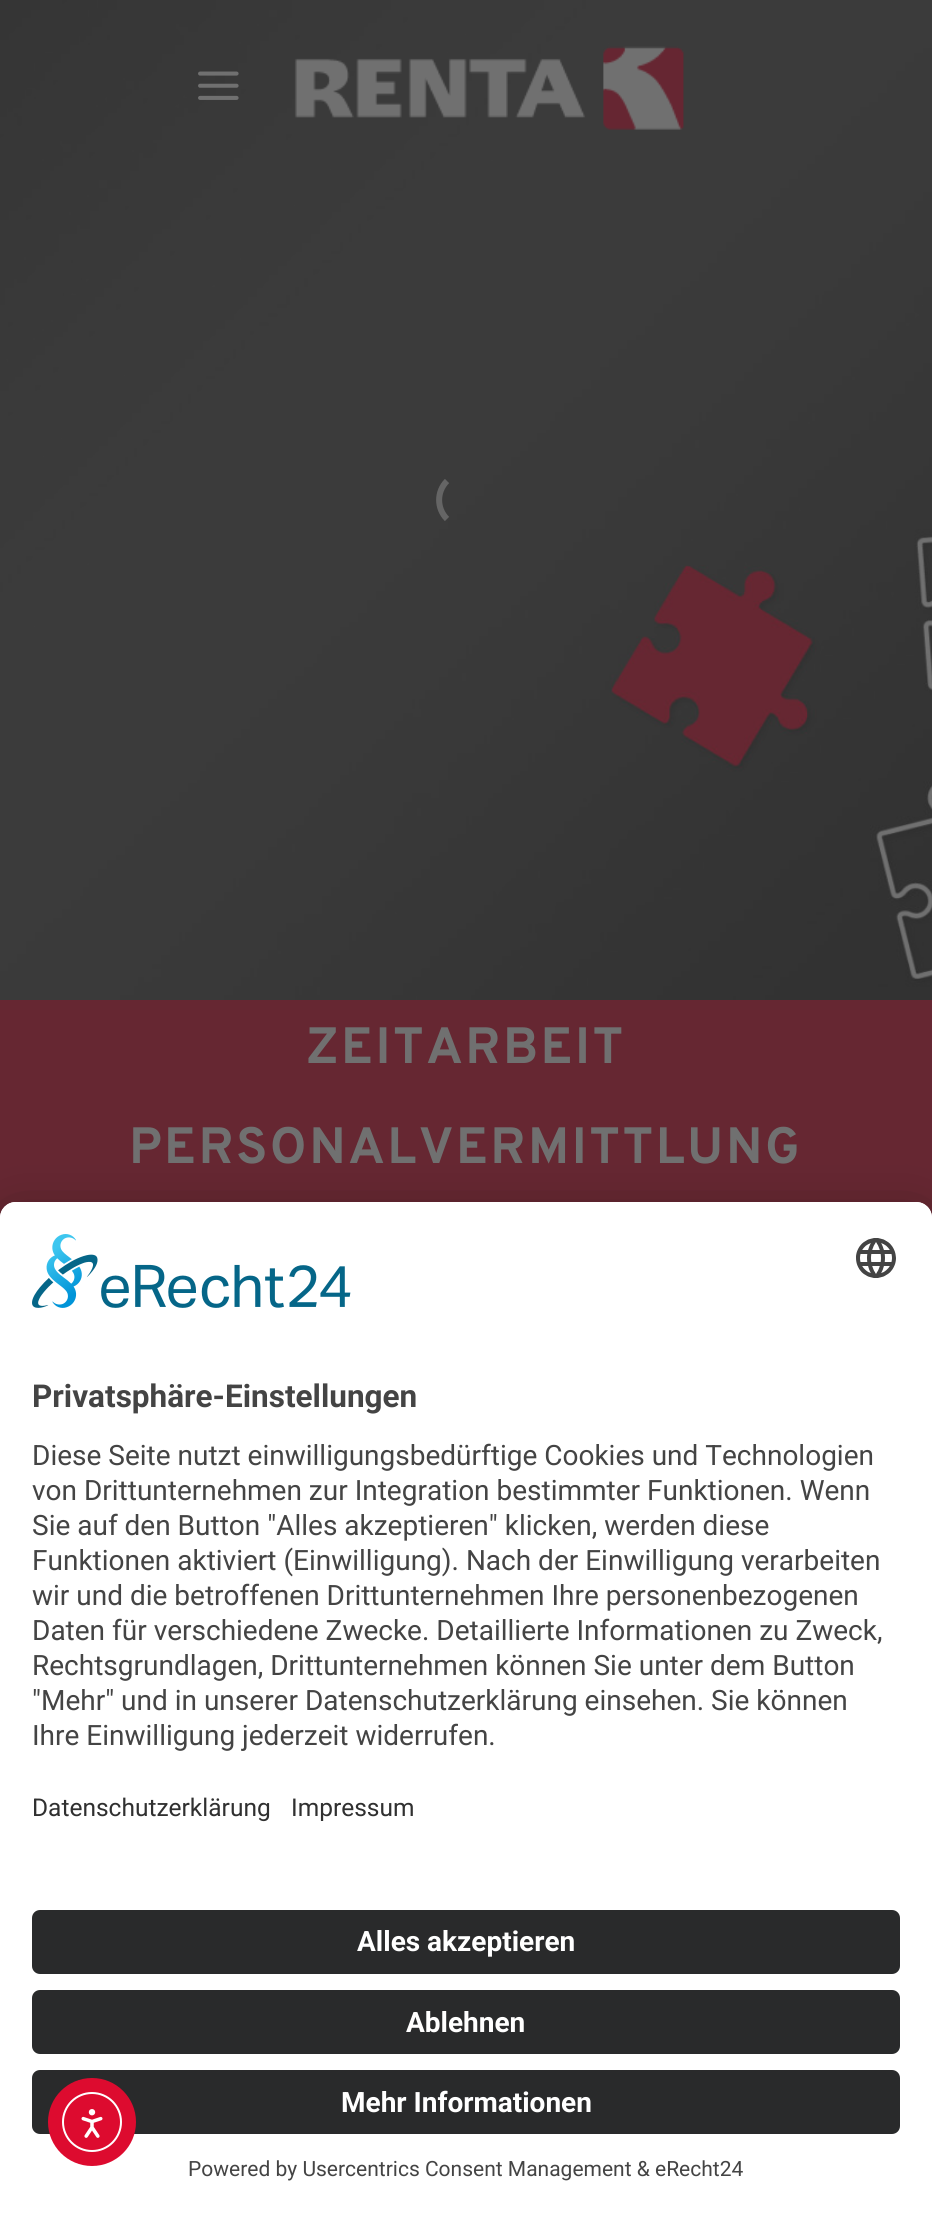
#include <cairo.h>
#include <math.h>
#include <stddef.h>

static cairo_t *c;
static void C(unsigned color){cairo_set_source_rgb(c, (color >> 16) / 255.0, (color >> 8 & 255) / 255.0, (color & 255) / 255.0);}
static void F(const char *family, double size, int italic, int bold){cairo_select_font_face(c, family, italic ? CAIRO_FONT_SLANT_ITALIC : CAIRO_FONT_SLANT_NORMAL,bold ? CAIRO_FONT_WEIGHT_BOLD : CAIRO_FONT_WEIGHT_NORMAL);cairo_set_font_size(c, size);}
static void T(double x, double y, const char *s){cairo_move_to(c, x, y);cairo_show_text(c, s);}
static void L(double x, double y, const char *s, double letter, double word){cairo_move_to(c, x, y);while (*s) {char ch[5] = {0};int n = 0;do ch[n++] = *s++; while ((*s & 0xC0) == 0x80);cairo_show_text(c, ch);cairo_rel_move_to(c, letter + word * (*ch == ' '), 0);}}
static void R(double x, double y, double w, double h){cairo_rectangle(c, x, y, w, h);cairo_fill(c);}
static void Q(double x, double y, double w, double h, double r){cairo_new_sub_path(c);cairo_arc(c, x + w - r, y + h - r, r, 0, M_PI / 2);cairo_arc(c, x + r, y + h - r, r, M_PI / 2, M_PI);cairo_arc(c, x + r, y + r, r, M_PI, 1.5 * M_PI);cairo_arc(c, x + w - r, y + r, r, 1.5 * M_PI, 2 * M_PI);cairo_close_path(c);}
static void S(double x, double y, double w, double h, double r, double blur, double alpha){cairo_push_group_with_content(c, CAIRO_CONTENT_ALPHA);cairo_set_operator(c, CAIRO_OPERATOR_SOURCE);for (int i = 15; i >= -15 && fmin(w, h) + blur * i / 3 > 0; i -= 2) {double e = blur * i / 6;cairo_set_source_rgba(c, 0, 0, 0, alpha * erfc((i - 1) / 8.5) / 2);Q(x - e, y - e, w + 2 * e, h + 2 * e, fmax(0, fmin(r + e + blur * .6, fmin(w, h) / 2 + e)));cairo_fill(c);}cairo_pattern_t *soft = cairo_pop_group(c);cairo_mask(c, soft);cairo_pattern_destroy(soft);}
static void I(const char *path, double x, double y, double w, double h){cairo_surface_t *image = cairo_image_surface_create_from_png(path);cairo_save(c);cairo_set_source_surface(c, image, x, y);cairo_rectangle(c, x, y, w, h);cairo_fill(c);cairo_restore(c);cairo_surface_destroy(image);}
int main(void) {
cairo_surface_t *surface = cairo_image_surface_create(CAIRO_FORMAT_RGB24, 932, 2214);
c = cairo_create(surface);
cairo_font_options_t *options = cairo_font_options_create();
cairo_font_options_set_hint_metrics(options, CAIRO_HINT_METRICS_OFF);
cairo_font_options_set_hint_style(options, CAIRO_HINT_STYLE_NONE);
cairo_set_font_options(c, options);
cairo_set_miter_limit(c, 4);
C(0xffffff);
cairo_paint(c);
I("3.png",0,0,932,1000);
I("1.png",198,71,41,29);
I("2.png",294,46,390,84);
cairo_new_path(c);
cairo_move_to(c,447,519);
cairo_curve_to(c,436.5,508.5,436.5,491.5,447,481);
C(0x656565);
cairo_set_line_width(c,6);
cairo_stroke(c);
C(0x662732);
R(0,1000,932,218);
F("Overpass",51,0,1);
C(0x707070);
L(306,1063,"ZEITARBEIT",2.5,0);
L(129,1163,"PERSONALVERMITTLUNG",2.5,0);
C(0x000000);
S(0,1242,932,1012,16,28,.3);
S(0,1212,932,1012,16,26,.22);
C(0xffffff);
cairo_new_path(c);
cairo_move_to(c,16,1202);
cairo_line_to(c,916,1202);
cairo_curve_to(c,925,1202,932,1209,932,1218);
cairo_line_to(c,932,2214);
cairo_line_to(c,0,2214);
cairo_line_to(c,0,1218);
cairo_curve_to(c,0,1209,7,1202,16,1202);
cairo_close_path(c);
cairo_fill(c);
cairo_new_path(c);
cairo_move_to(c,16,1202);
cairo_line_to(c,916,1202);
cairo_curve_to(c,925,1202,932,1209,932,1218);
cairo_line_to(c,932,1886);
cairo_line_to(c,0,1886);
cairo_line_to(c,0,1218);
cairo_curve_to(c,0,1209,7,1202,16,1202);
cairo_close_path(c);
cairo_fill(c);
I("4.png",32,1234,319,74);
I("5.png",856,1238,40,40);
F("Roboto",31.5,0,1);
C(0x444444);
T(32,1407,"Privatsphäre-Einstellungen");
F("Roboto",28,0,0);
T(32,1465,"Diese Seite nutzt einwilligungsbedürftige Cookies und Technologien");
T(32,1500,"von Drittunternehmen zur Integration bestimmter Funktionen. Wenn");
T(32,1535,"Sie auf den Button \"Alles akzeptieren\" klicken, werden diese");
T(32,1570,"Funktionen aktiviert (Einwilligung). Nach der Einwilligung verarbeiten");
T(32,1605,"wir und die betroffenen Drittunternehmen Ihre personenbezogenen");
T(32,1640,"Daten für verschiedene Zwecke. Detaillierte Informationen zu Zweck,");
T(32,1675,"Rechtsgrundlagen, Drittunternehmen können Sie unter dem Button");
T(32,1710,"\"Mehr\" und in unserer Datenschutzerklärung einsehen. Sie können");
T(32,1745,"Ihre Einwilligung jederzeit widerrufen.");
F("Roboto",24.5,0,0);
C(0x303030);
T(32,1816,"Datenschutzerklärung");
T(291,1816,"Impressum");
C(0x292a2b);
Q(32,1910,868,64,8);
cairo_fill(c);
F("Roboto",28,0,1);
C(0xffffff);
T(357,1951,"Alles akzeptieren");
C(0x292a2b);
Q(32,1990,868,64,8);
cairo_fill(c);
C(0xffffff);
T(406,2032,"Ablehnen");
C(0x292a2b);
Q(32,2070,868,64,8);
cairo_fill(c);
C(0xffffff);
T(341,2112,"Mehr Informationen");
F("Roboto",21,0,0);
C(0x444444);
T(188,2176,"Powered by Usercentrics Consent Management & eRecht24");
C(0xdd0b2f);
cairo_new_path(c);
cairo_arc(c,92,2122,44,0,2 * M_PI);
cairo_fill(c);
cairo_arc(c,92,2122,29,0,2 * M_PI);
C(0xffffff);
cairo_set_line_width(c,2);
cairo_stroke(c);
I("6.png",81,2109,22,29);
cairo_surface_write_to_png(surface, "o.png");
cairo_font_options_destroy(options);
cairo_destroy(c);
cairo_surface_destroy(surface);
return 0;
}
